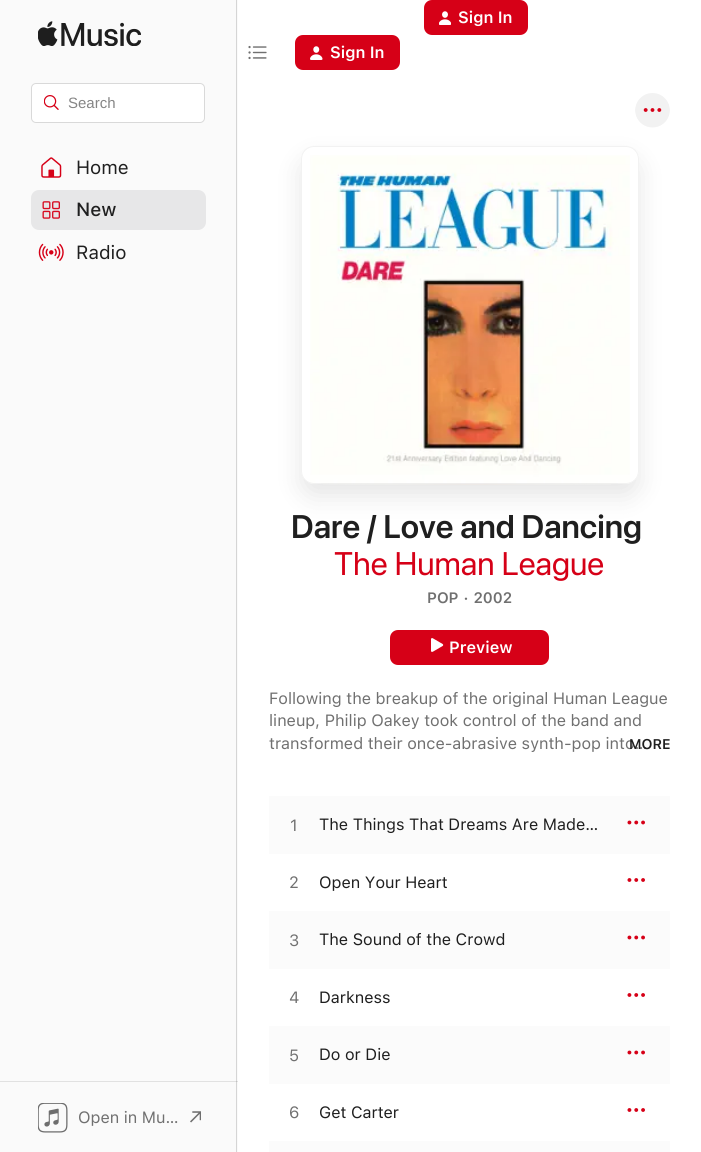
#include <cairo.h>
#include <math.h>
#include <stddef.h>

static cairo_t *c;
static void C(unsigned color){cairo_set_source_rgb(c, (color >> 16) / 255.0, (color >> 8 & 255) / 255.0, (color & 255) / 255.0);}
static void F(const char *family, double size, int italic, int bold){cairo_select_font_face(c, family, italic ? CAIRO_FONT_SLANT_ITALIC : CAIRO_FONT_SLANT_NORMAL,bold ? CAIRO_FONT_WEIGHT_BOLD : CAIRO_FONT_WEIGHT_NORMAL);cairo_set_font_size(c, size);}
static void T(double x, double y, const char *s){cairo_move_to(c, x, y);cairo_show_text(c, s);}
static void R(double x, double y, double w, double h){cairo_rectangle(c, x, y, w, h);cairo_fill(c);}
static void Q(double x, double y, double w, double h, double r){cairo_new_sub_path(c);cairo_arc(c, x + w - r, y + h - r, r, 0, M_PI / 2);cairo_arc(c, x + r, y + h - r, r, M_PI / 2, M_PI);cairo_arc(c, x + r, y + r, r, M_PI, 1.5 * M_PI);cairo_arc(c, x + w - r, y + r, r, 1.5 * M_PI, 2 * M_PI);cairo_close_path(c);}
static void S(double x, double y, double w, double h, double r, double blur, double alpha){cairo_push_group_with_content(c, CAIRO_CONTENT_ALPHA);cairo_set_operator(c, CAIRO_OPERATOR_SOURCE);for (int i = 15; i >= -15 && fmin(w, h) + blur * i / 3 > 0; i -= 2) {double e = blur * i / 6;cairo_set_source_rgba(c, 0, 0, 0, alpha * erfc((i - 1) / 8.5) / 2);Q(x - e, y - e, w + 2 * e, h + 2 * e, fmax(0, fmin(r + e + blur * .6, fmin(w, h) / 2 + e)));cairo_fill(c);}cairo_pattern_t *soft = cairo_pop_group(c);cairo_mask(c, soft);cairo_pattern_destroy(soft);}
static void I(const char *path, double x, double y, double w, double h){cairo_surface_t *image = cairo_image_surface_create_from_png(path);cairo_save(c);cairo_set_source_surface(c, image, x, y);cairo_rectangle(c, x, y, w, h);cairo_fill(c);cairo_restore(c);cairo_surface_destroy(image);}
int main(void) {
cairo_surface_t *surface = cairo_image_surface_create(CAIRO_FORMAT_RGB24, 701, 1152);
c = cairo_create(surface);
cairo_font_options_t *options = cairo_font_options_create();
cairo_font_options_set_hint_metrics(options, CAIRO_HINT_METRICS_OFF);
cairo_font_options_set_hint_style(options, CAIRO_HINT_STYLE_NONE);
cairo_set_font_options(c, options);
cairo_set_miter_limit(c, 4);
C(0xffffff);
cairo_paint(c);
C(0xd60017);
Q(424,0,104,35,8);
cairo_fill(c);
I("1.png",439,11,12,14);
F("SF SemiBold",16.25,0,0);
C(0xffffff);
T(458,23,"Sign In");
I("2.png",248,45,19,15);
C(0xd60017);
Q(295,35,105,35,8);
cairo_fill(c);
I("3.png",310,46,13,14);
C(0xffffff);
T(330,58,"Sign In");
C(0xfafafa);
R(0,0,238,1152);
C(0xe1e1e1);
R(0,1081,238,1);
C(0xd5d5d5);
R(236,0,1,1152);
C(0xc0c0c0);
R(236,1081,1,1);
I("4.png",38,21,103,25);
C(0xffffff);
Q(31.5,83.5,173,39,4.5);
cairo_fill_preserve(c);
C(0xd9d9d9);
cairo_set_line_width(c,1);
cairo_stroke(c);
I("5.png",44,95,15,15);
F("Liberation Sans",15,0,0);
C(0x858585);
T(68,108,"Search");
I("6.png",41,157,21,21);
F("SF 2",19,0,0);
C(0x1f1f1f);
T(76,174,"Home");
C(0xe7e7e8);
Q(31,190,175,40,8);
cairo_fill(c);
I("7.png",42,201,18,18);
F("SF Medium",19,0,0);
C(0x1f1f1f);
T(76,216,"New");
I("8.png",38,243,26,18);
F("SF 2",19,0,0);
T(76,259,"Radio");
I("9.png",38,1103,30,30);
F("SF 2",16.25,0,0);
C(0x707070);
T(78,1123,"Open in Mu…");
I("10.png",190,1111,11,12);
I("11.png",635,93,35,35);
cairo_save(c);
cairo_set_fill_rule(c,CAIRO_FILL_RULE_EVEN_ODD);
cairo_new_path(c);
cairo_move_to(c,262,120);
cairo_line_to(c,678,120);
cairo_line_to(c,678,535);
cairo_line_to(c,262,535);
cairo_close_path(c);
cairo_move_to(c,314,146);
cairo_line_to(c,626,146);
cairo_curve_to(c,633,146,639,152,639,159);
cairo_line_to(c,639,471);
cairo_curve_to(c,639,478,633,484,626,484);
cairo_line_to(c,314,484);
cairo_curve_to(c,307,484,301,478,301,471);
cairo_line_to(c,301,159);
cairo_curve_to(c,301,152,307,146,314,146);
cairo_close_path(c);
cairo_clip(c);
C(0x000000);
S(301,159,338,337,13,12.5,.1);
cairo_restore(c);
I("13.png",323,483,288,2);
cairo_rectangle(c,321.5,186.5,296,297);
cairo_set_source_rgba(c,0.502,0.502,0.502,0.04);
cairo_stroke(c);
I("12.png",310,155,320,329);
Q(301.5,146.5,337,337,12.5);
cairo_set_source_rgba(c,0.502,0.502,0.502,0.1);
cairo_stroke(c);
F("SF 2 SemiBold",32.5,0,0);
C(0x1f1f1f);
T(291,538,"Dare / Love and Dancing");
F("SF",32.5,0,0);
C(0xd60017);
T(334,575,"The Human League");
F("SF SemiBold",15,0,0);
C(0x707070);
T(427,603,"POP · 2002");
C(0xd60017);
Q(390,630,159,35,8);
cairo_fill(c);
I("14.png",431,638,13,14);
F("SF SemiBold",16.25,0,0);
C(0xffffff);
T(449,653,"Preview");
F("SF 2",16.25,0,0);
C(0x707070);
T(269,704,"Following the breakup of the original Human League");
T(269,726,"lineup, Philip Oakey took control of the band and");
T(269,749,"transformed their once-abrasive synth-pop into…");
F("SF SemiBold",14,0,0);
C(0x1f1f1f);
T(629,749,"MORE");
C(0xfbfbfb);
R(269,796,401,58);
F("SF 2",16.25,0,0);
C(0x707070);
T(290,831,"1");
C(0x1f1f1f);
T(319,830,"The Things That Dreams Are Made…");
I("15.png",627,820,18,5);
C(0x707070);
T(289,888,"2");
C(0x1f1f1f);
T(319,888,"Open Your Heart");
I("16.png",627,878,18,4);
C(0xfbfbfb);
R(269,911,401,58);
C(0x707070);
T(289,946,"3");
C(0x1f1f1f);
T(319,945,"The Sound of the Crowd");
I("15.png",627,935,18,5);
C(0x707070);
T(289,1003,"4");
C(0x1f1f1f);
T(319,1003,"Darkness");
I("16.png",627,993,18,4);
C(0xfbfbfb);
R(269,1026,401,58);
C(0x707070);
T(289,1061,"5");
C(0x1f1f1f);
T(319,1060,"Do or Die");
I("15.png",627,1050,18,5);
C(0x707070);
T(289,1118,"6");
C(0x1f1f1f);
T(319,1118,"Get Carter");
I("16.png",627,1108,18,4);
C(0xfbfbfb);
R(269,1141,401,11);
cairo_surface_write_to_png(surface, "o.png");
cairo_font_options_destroy(options);
cairo_destroy(c);
cairo_surface_destroy(surface);
return 0;
}
